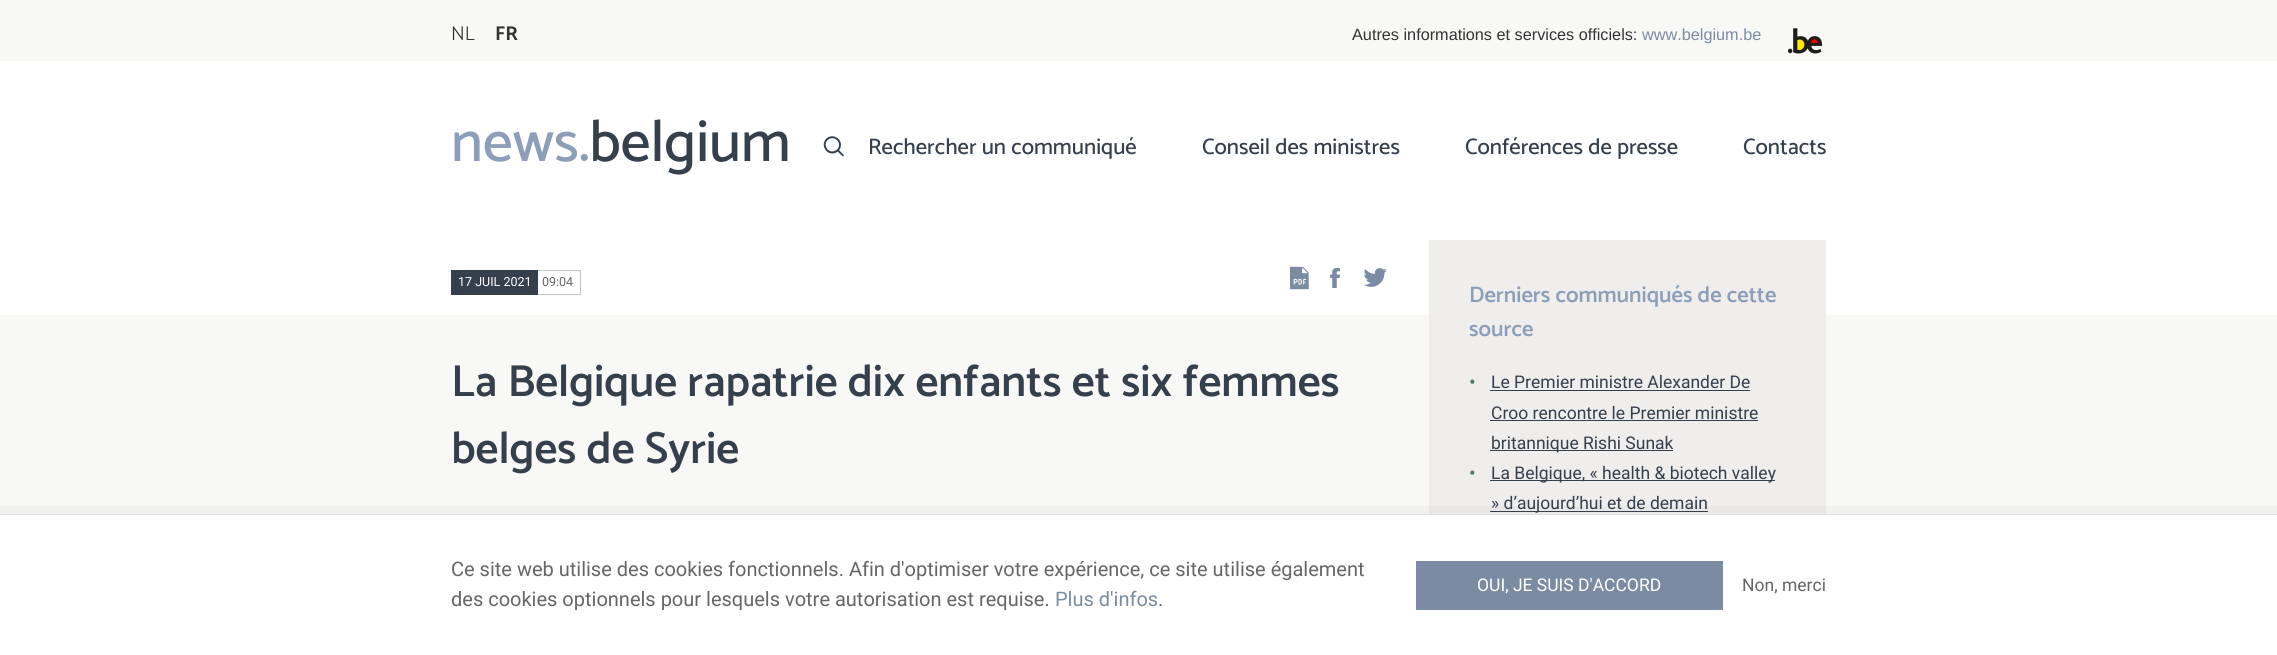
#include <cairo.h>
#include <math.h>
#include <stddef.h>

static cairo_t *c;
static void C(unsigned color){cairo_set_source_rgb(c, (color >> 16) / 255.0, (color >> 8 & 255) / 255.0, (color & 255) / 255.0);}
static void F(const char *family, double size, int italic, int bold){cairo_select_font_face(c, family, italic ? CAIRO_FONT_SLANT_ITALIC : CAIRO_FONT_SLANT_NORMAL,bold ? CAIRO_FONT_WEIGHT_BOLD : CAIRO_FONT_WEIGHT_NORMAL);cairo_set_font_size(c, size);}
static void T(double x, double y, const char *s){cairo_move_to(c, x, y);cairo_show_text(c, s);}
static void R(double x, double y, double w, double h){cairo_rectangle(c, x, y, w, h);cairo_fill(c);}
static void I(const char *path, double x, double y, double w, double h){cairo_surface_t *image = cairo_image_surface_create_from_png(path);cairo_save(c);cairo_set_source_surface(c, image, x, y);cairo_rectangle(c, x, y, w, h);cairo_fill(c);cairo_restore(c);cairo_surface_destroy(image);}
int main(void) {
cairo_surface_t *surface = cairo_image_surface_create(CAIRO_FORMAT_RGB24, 2277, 655);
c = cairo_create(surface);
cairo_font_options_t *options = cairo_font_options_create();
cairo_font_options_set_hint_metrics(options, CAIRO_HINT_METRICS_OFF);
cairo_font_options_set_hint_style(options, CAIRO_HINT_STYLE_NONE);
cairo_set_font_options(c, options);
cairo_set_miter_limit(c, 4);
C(0xf8f8f7);
cairo_paint(c);
F("Catamaran Light",20,0,0);
C(0x333333);
T(451,40,"NL");
F("Catamaran",20,0,1);
T(495,40,"FR");
F("Liberation Sans",16.25,0,0);
T(1352,40,"Autres informations et services officiels:");
C(0x7b8ba2);
T(1642,40,"www.belgium.be");
I("1.png",1788,28,35,26);
C(0xffffff);
R(0,61,2277,254);
F("Catamaran Medium",59,0,0);
C(0x8c9eb8);
T(451,161,"news.");
C(0x363f4c);
T(589,161,"belgium");
I("2.png",823,136,21,21);
F("Catamaran Medium",22.5,0,0);
T(868,154,"Rechercher un communiqué");
T(1202,154,"Conseil des ministres");
T(1465,154,"Conférences de presse");
T(1743,154,"Contacts");
R(451,270,87,25);
F("Roboto",12.5,0,0);
C(0xffffff);
T(458,286,"17 JUIL 2021");
C(0xc2c5c9);
R(538,270,43,1);
R(580,270,1,25);
R(538,294,43,1);
C(0x666666);
T(542,286,"09:04");
I("3.png",1290,266,19,24);
I("4.png",1330,267,10,21);
I("5.png",1363,268,24,19);
F("Catamaran SemiBold",45,0,0);
C(0x363f4c);
T(451,396,"La Belgique rapatrie dix enfants et six femmes");
T(451,463,"belges de Syrie");
C(0xefeeed);
R(1429,240,397,274);
F("Catamaran SemiBold",22.5,0,0);
C(0x8c9eb8);
T(1469,302,"Derniers communiqués de cette");
T(1469,336,"source");
F("Roboto",20,0,0);
C(0x56786e);
T(1469,389,"•");
F("Roboto",17.5,0,0);
C(0x363f4c);
T(1491,388,"Le Premier ministre Alexander De");
R(1490,390,260,1);
T(1491,419,"Croo rencontre le Premier ministre");
R(1490,420,268,1);
R(1490,450,183,1);
T(1491,449,"britannique Rishi Sunak");
F("Roboto",20,0,0);
C(0x56786e);
T(1469,480,"•");
C(0x363f4c);
R(1490,480,285,1);
F("Roboto",17.5,0,0);
T(1491,479,"La Belgique, « health & biotech valley");
R(1490,511,218,1);
T(1491,509,"» d’aujourd’hui et de demain");
cairo_set_source_rgba(c,0.2,0.2,0.2,0.03);
cairo_new_path(c);
cairo_move_to(c,-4,506);
cairo_line_to(c,-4,655);
cairo_line_to(c,0,655);
cairo_line_to(c,0,514);
cairo_line_to(c,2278,514);
cairo_line_to(c,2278,655);
cairo_line_to(c,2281,655);
cairo_line_to(c,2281,506);
cairo_close_path(c);
cairo_fill(c);
C(0xffffff);
R(0,515,2277,140);
C(0xe1e1e1);
R(0,514,2277,1);
F("Roboto",20,0,0);
C(0x666666);
T(451,576,"Ce site web utilise des cookies fonctionnels. Afin d'optimiser votre expérience, ce site utilise également");
T(451,606,"des cookies optionnels pour lesquels votre autorisation est requise.");
C(0x7b8ba2);
T(1055,606,"Plus d'infos");
C(0x666666);
T(1158,606,".");
C(0x7b8ba2);
R(1416,561,307,49);
F("Roboto",17.5,0,0);
C(0xffffff);
T(1477,591,"OUI, JE SUIS D'ACCORD");
C(0x666666);
T(1742,591,"Non, merci");
cairo_surface_write_to_png(surface, "o.png");
cairo_font_options_destroy(options);
cairo_destroy(c);
cairo_surface_destroy(surface);
return 0;
}
